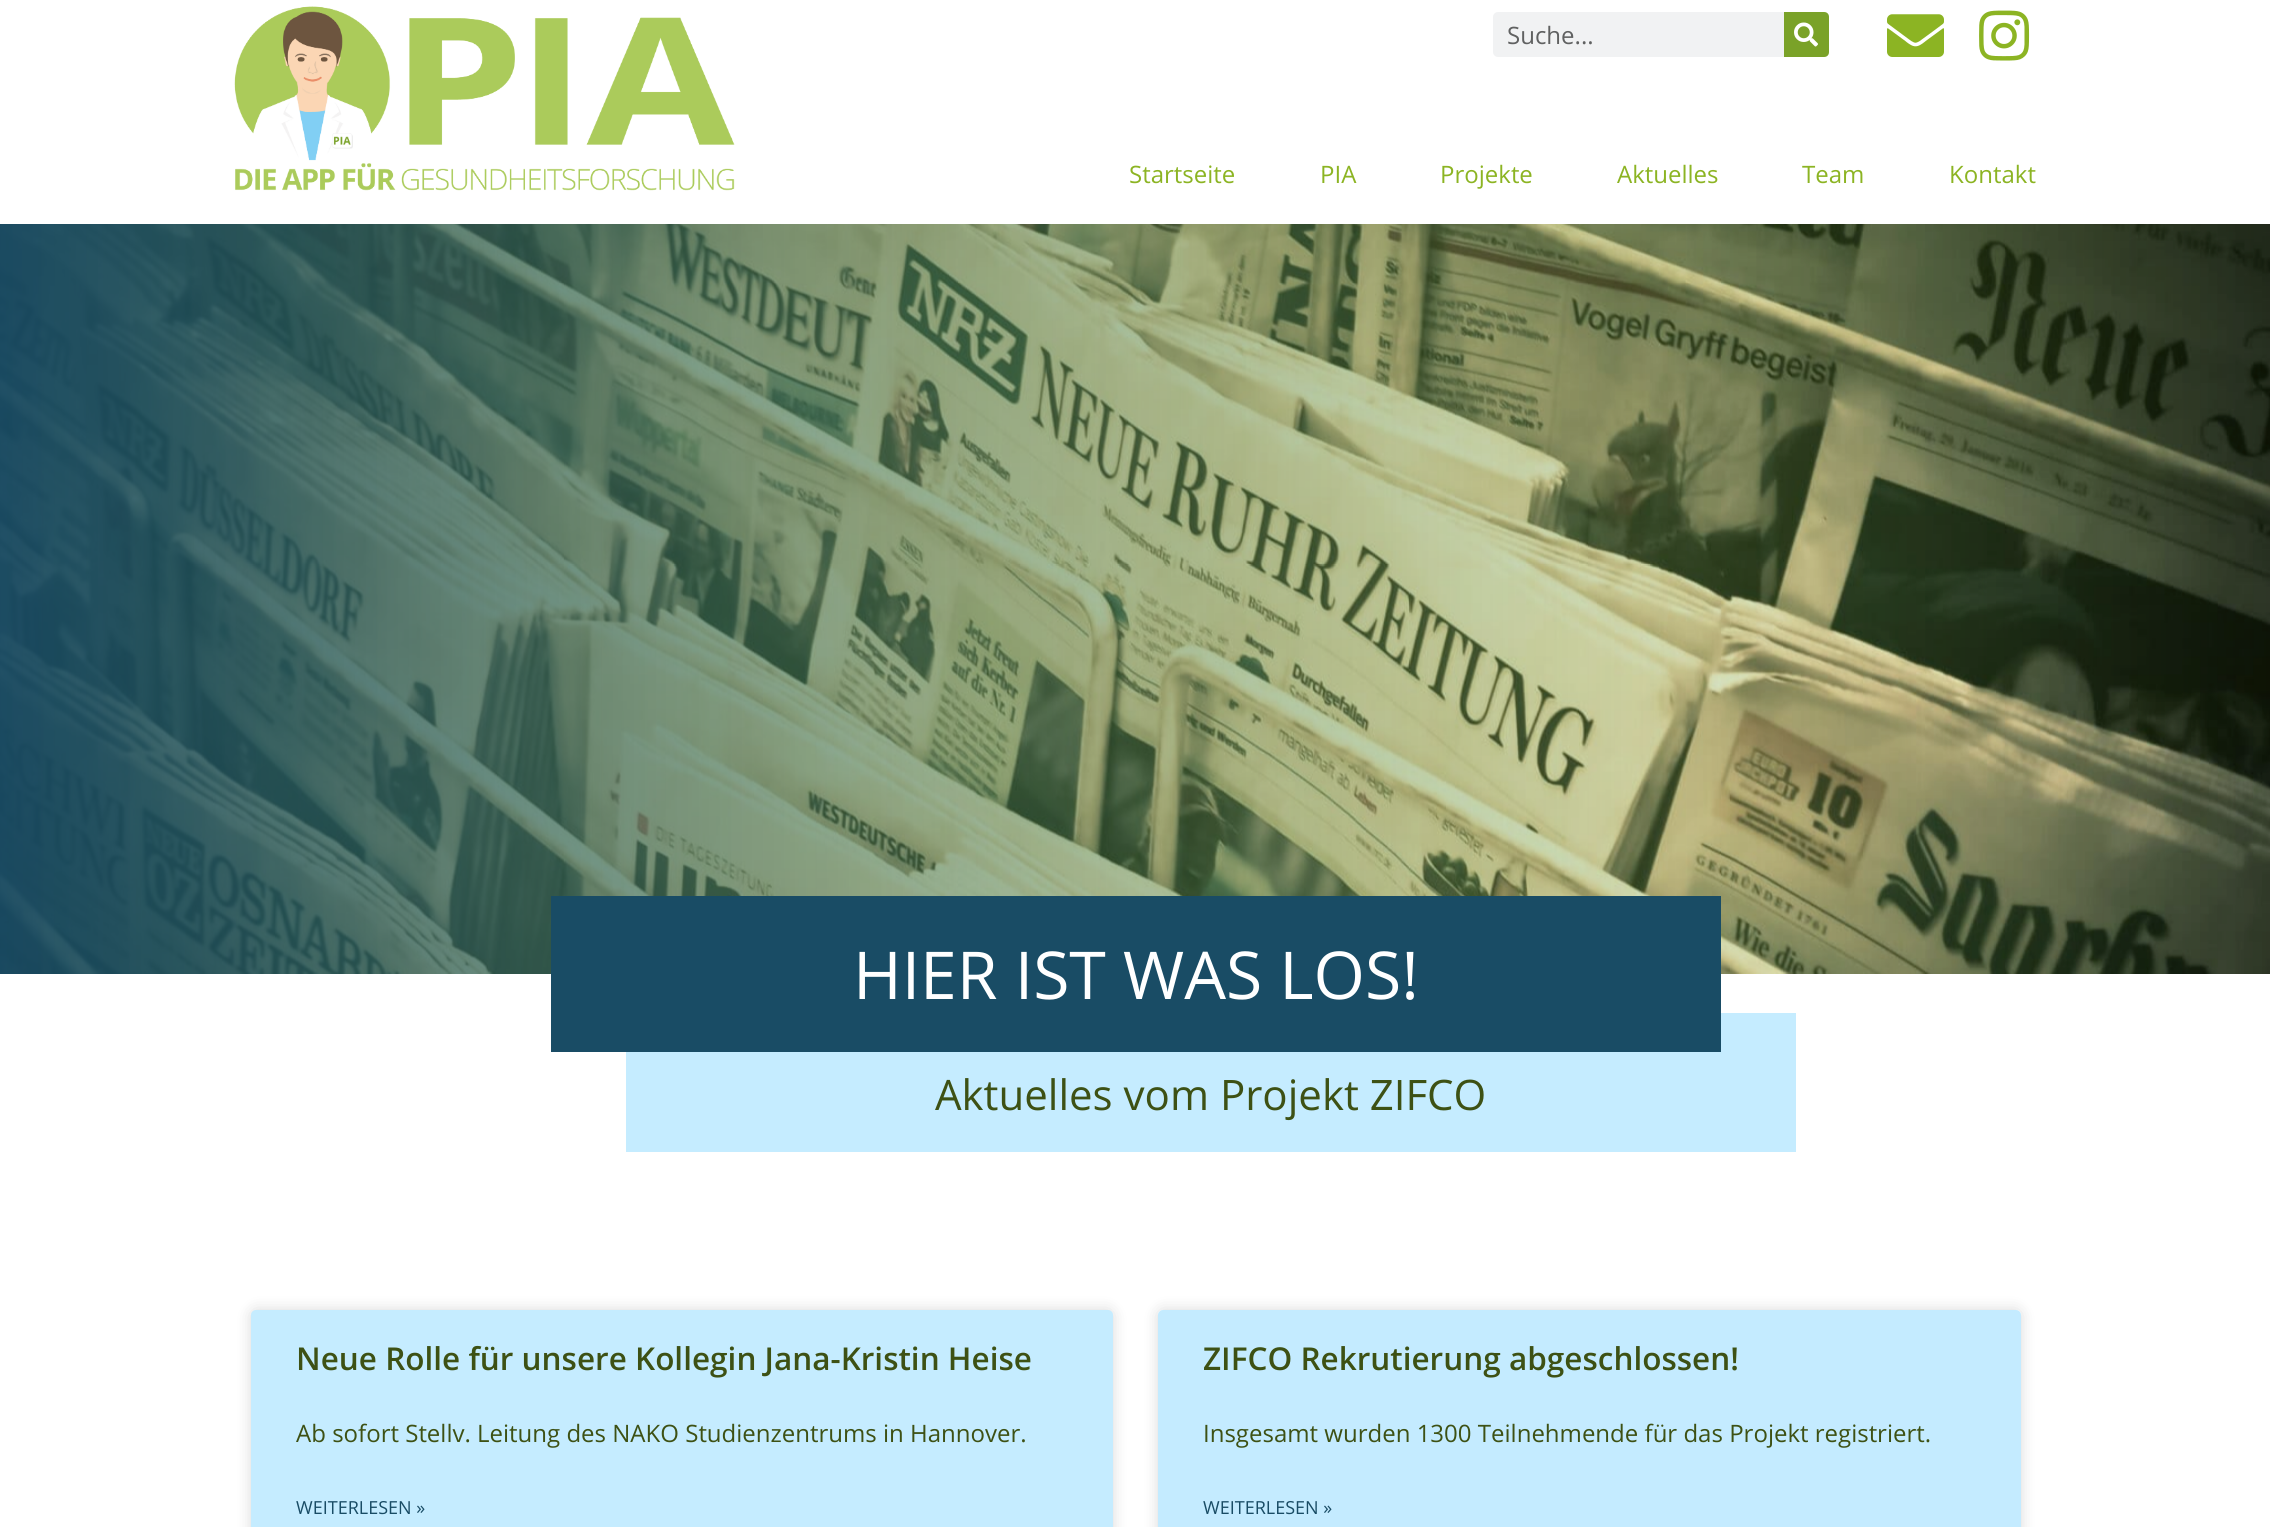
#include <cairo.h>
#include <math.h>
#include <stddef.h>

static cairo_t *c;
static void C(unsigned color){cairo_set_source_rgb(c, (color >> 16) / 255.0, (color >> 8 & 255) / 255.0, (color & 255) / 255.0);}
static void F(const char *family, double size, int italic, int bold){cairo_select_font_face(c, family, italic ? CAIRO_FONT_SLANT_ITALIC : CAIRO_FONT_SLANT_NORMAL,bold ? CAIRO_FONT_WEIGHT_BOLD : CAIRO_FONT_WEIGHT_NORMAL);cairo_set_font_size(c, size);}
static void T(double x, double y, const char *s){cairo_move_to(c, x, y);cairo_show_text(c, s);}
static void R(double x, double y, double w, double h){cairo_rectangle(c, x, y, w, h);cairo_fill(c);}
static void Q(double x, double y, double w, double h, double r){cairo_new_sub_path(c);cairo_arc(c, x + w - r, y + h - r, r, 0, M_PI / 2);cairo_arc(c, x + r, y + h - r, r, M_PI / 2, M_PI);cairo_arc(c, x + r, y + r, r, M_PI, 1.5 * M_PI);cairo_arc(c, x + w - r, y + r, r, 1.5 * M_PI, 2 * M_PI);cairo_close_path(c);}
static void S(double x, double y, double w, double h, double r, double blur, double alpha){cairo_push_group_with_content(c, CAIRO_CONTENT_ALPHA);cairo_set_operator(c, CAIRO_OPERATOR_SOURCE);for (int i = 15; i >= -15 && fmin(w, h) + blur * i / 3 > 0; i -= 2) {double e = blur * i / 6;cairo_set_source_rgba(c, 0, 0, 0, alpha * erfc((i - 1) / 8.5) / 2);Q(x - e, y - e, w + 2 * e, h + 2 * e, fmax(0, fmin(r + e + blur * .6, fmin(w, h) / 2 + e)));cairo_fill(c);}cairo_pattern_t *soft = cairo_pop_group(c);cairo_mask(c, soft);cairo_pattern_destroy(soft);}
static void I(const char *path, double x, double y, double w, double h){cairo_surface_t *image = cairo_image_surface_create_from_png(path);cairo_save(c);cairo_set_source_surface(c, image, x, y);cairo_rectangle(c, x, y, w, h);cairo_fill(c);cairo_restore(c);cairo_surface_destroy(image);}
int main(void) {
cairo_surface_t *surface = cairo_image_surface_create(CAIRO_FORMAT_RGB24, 2270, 1527);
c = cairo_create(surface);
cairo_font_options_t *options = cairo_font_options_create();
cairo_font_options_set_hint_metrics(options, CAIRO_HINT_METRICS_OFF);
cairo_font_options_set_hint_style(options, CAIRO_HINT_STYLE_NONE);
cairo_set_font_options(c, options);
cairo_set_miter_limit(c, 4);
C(0xffffff);
cairo_paint(c);
C(0xf1f2f3);
Q(1493,12,336,45,5);
cairo_fill(c);
F("Open Sans",24,0,0);
C(0x606161);
T(1507,44,"Suche...");
C(0x7aa228);
cairo_new_path(c);
cairo_move_to(c,1784,12);
cairo_line_to(c,1824,12);
cairo_curve_to(c,1827,12,1829,14,1829,17);
cairo_line_to(c,1829,52);
cairo_curve_to(c,1829,55,1827,57,1824,57);
cairo_line_to(c,1784,57);
cairo_close_path(c);
cairo_fill(c);
I("1.png",1794,22,24,25);
I("2.png",1887,14,57,43);
I("3.png",1979,10,51,51);
I("4.png",234,6,501,185);
C(0x8cb423);
T(1129,183,"Startseite");
T(1320,183,"PIA");
T(1440,183,"Projekte");
T(1617,183,"Aktuelles");
T(1802,183,"Team");
T(1949,183,"Kontakt");
I("5.png",0,224,2270,750);
C(0xc5ecff);
R(626,1013,1170,139);
C(0x194c65);
R(551,896,1170,156);
F("Open Sans",66,0,0);
C(0xffffff);
T(853,999,"HIER IST WAS LOS!");
F("Open Sans",42,0,0);
C(0x3d5114);
T(935,1110,"Aktuelles vom Projekt ZIFCO");
C(0x000000);
S(251,1310,862,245,5,7.5,.15);
C(0xc5ecff);
Q(251,1310,862,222,5);
cairo_fill(c);
F("Open Sans SemiBold",31.5,0,0);
C(0x3d5114);
T(296,1370,"Neue Rolle für unsere Kollegin Jana-Kristin Heise");
F("Open Sans",24,0,0);
T(296,1442,"Ab sofort Stellv. Leitung des NAKO Studienzentrums in Hannover.");
F("Open Sans",18,0,0);
C(0x194c65);
T(296,1514,"WEITERLESEN »");
cairo_save(c);
cairo_set_fill_rule(c,CAIRO_FILL_RULE_EVEN_ODD);
cairo_new_path(c);
cairo_move_to(c,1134,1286);
cairo_line_to(c,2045,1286);
cairo_line_to(c,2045,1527);
cairo_line_to(c,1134,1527);
cairo_close_path(c);
cairo_move_to(c,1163,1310);
cairo_line_to(c,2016,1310);
cairo_curve_to(c,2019,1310,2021,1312,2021,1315);
cairo_line_to(c,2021,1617);
cairo_curve_to(c,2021,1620,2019,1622,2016,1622);
cairo_line_to(c,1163,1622);
cairo_curve_to(c,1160,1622,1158,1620,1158,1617);
cairo_line_to(c,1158,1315);
cairo_curve_to(c,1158,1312,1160,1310,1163,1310);
cairo_close_path(c);
cairo_clip(c);
C(0x000000);
S(1158,1310,863,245,5,7.5,.15);
cairo_restore(c);
cairo_set_source_rgba(c,0.49,0.831,1,0.45);
Q(1158,1310,863,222,5);
cairo_fill(c);
F("Open Sans SemiBold",31.5,0,0);
C(0x3d5114);
T(1203,1370,"ZIFCO Rekrutierung abgeschlossen!");
F("Open Sans",24,0,0);
T(1203,1442,"Insgesamt wurden 1300 Teilnehmende für das Projekt registriert.");
F("Open Sans",18,0,0);
C(0x194c65);
T(1203,1514,"WEITERLESEN »");
cairo_surface_write_to_png(surface, "o.png");
cairo_font_options_destroy(options);
cairo_destroy(c);
cairo_surface_destroy(surface);
return 0;
}
